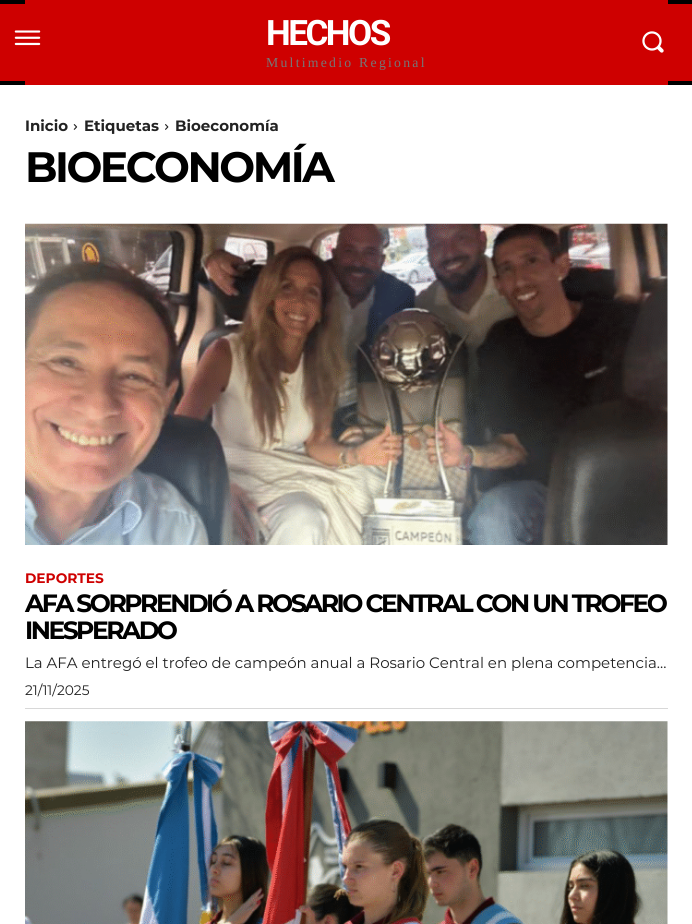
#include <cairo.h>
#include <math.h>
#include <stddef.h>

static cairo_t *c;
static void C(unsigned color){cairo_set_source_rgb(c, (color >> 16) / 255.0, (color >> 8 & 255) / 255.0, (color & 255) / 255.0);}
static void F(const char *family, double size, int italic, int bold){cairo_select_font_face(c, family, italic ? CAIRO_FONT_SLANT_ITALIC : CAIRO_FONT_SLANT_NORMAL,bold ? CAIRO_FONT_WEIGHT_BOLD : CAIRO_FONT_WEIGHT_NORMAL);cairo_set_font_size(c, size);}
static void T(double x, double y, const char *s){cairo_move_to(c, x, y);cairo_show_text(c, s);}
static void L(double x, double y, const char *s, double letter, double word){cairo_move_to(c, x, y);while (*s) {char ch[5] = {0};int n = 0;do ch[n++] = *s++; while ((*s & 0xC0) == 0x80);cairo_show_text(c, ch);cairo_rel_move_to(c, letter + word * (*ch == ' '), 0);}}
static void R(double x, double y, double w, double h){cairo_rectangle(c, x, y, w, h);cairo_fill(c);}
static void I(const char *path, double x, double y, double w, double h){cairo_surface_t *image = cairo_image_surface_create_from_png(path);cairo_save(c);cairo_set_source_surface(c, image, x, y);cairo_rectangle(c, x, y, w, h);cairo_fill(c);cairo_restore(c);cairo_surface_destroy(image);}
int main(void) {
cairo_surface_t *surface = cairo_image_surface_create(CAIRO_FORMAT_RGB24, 692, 924);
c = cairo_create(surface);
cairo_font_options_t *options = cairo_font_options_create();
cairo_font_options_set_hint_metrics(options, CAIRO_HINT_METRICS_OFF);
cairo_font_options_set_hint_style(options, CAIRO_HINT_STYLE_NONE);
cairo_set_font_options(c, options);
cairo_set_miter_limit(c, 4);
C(0xffffff);
cairo_paint(c);
C(0x000000);
R(0,0,692,85);
cairo_rectangle(c,27,2,639,81);
C(0xce0000);
cairo_set_line_width(c,4);
cairo_stroke(c);
R(0,4,692,77);
I("1.png",14,30,27,16);
F("Roboto",35,0,1);
C(0xffffff);
L(266,45,"HECHOS",-2.5,0);
F("Liberation Serif",13.75,0,0);
C(0x767676);
L(266,67,"Multimedio Regional",2.25,0);
I("2.png",642,31,22,22);
F("Montserrat",15,0,1);
C(0x222222);
T(25,131,"Inicio");
I("3.png",73,124,5,6);
T(84,131,"Etiquetas");
I("4.png",165,124,4,6);
T(175,131,"Bioeconomía");
F("Montserrat",42.5,0,1);
C(0x000000);
L(25,182,"BIOECONOMÍA",-2.5,0);
I("5.png",25,223,643,322);
F("Montserrat",13.75,0,1);
C(0xce0000);
T(25,583,"DEPORTES");
F("Montserrat",25,0,1);
C(0x000000);
L(25,612,"AFA SORPRENDIÓ A ROSARIO CENTRAL CON UN TROFEO",-2.5,0);
L(25,639,"INESPERADO",-2.5,0);
F("Montserrat",15,0,0);
C(0x222222);
T(25,668,"La AFA entregó el trofeo de campeón anual a Rosario Central en plena competencia...");
F("Montserrat",13.75,0,0);
T(25,695,"21/11/2025");
C(0xd8d8d8);
R(25,708,643,1);
I("6.png",25,721,643,203);
cairo_surface_write_to_png(surface, "o.png");
cairo_font_options_destroy(options);
cairo_destroy(c);
cairo_surface_destroy(surface);
return 0;
}
